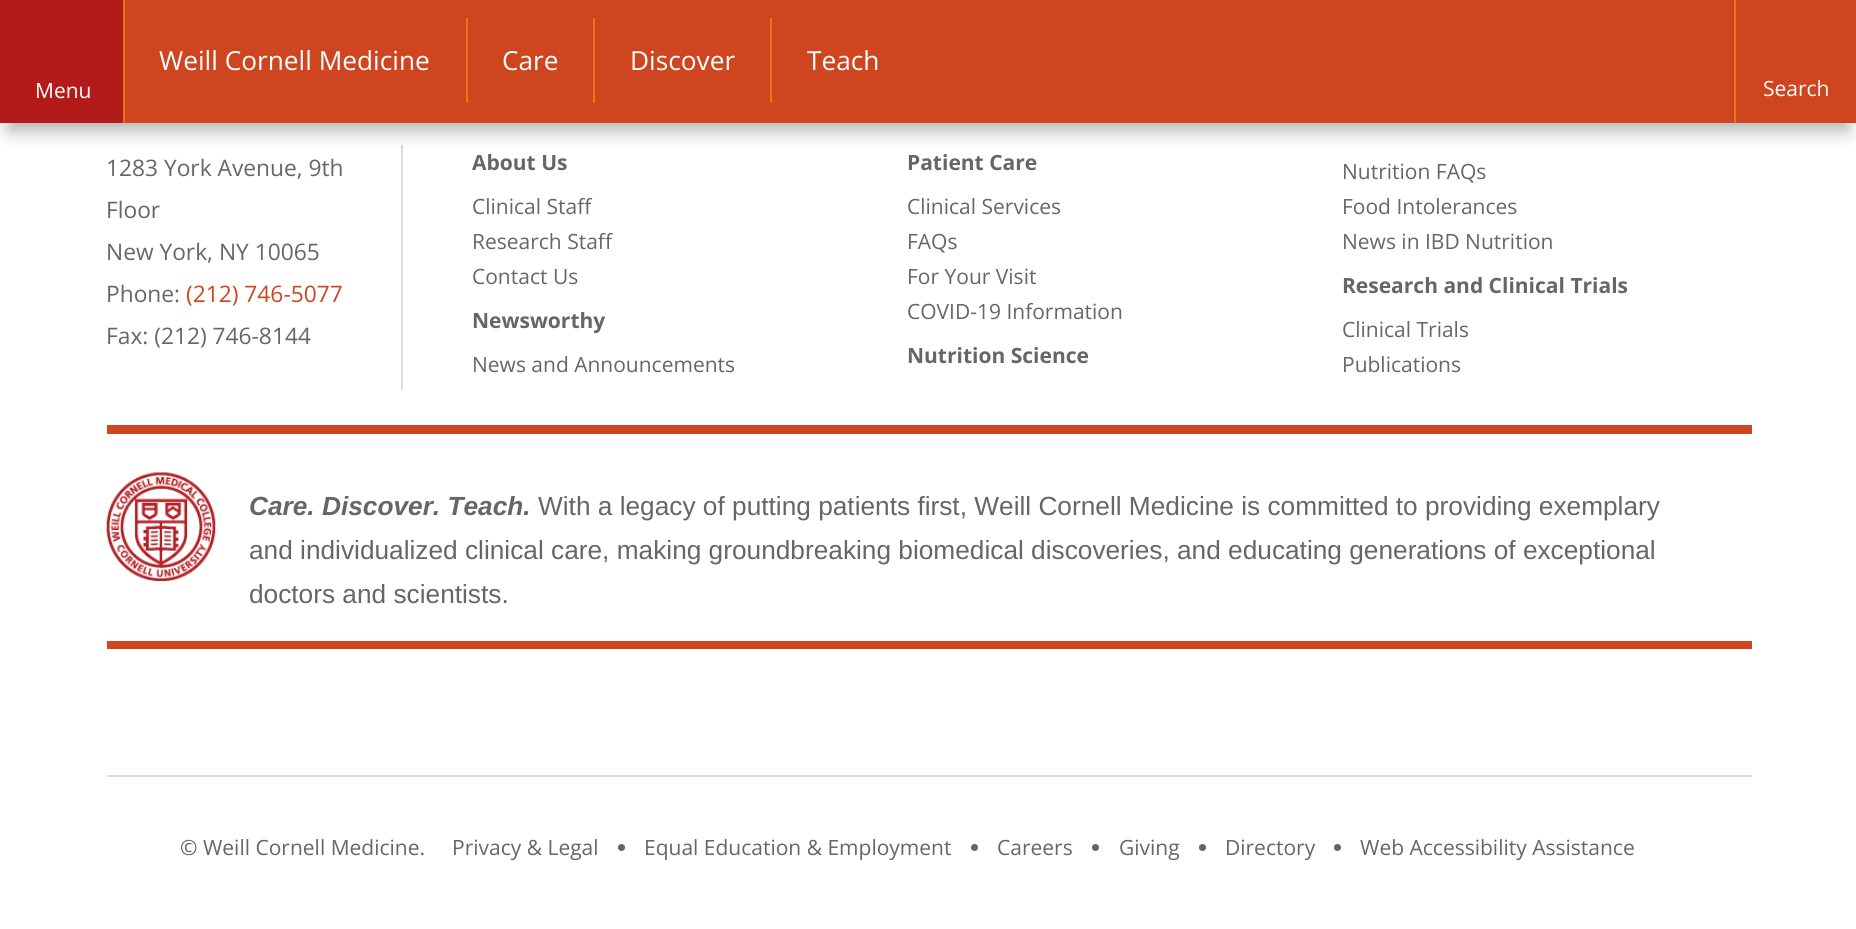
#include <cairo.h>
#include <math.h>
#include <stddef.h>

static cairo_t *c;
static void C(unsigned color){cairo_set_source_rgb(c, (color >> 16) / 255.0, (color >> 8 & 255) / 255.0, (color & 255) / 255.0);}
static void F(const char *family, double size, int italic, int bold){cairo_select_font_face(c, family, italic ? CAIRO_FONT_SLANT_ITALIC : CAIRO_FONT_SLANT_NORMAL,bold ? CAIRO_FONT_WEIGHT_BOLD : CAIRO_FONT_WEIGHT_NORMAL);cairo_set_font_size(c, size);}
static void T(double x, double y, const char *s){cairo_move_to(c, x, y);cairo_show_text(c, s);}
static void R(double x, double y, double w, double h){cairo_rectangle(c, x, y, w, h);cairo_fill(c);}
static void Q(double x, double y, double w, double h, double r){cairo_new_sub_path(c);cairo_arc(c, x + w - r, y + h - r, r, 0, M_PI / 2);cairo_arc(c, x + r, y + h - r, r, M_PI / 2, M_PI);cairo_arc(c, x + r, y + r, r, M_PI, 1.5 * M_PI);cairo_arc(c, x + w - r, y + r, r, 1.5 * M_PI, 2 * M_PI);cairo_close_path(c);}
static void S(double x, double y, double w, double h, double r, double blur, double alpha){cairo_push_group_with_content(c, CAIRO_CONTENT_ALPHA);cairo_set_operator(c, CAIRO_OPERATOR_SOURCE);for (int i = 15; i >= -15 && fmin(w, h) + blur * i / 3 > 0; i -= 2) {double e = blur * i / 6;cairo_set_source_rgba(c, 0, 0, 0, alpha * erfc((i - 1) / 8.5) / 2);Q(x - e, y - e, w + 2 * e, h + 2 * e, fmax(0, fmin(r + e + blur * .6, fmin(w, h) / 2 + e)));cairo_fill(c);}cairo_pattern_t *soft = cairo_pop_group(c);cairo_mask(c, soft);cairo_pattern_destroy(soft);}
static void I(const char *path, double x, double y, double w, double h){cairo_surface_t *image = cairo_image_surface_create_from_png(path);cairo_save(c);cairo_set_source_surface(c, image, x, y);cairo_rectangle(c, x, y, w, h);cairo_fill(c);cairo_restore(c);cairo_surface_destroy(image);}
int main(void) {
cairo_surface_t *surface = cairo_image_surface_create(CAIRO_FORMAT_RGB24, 1856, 929);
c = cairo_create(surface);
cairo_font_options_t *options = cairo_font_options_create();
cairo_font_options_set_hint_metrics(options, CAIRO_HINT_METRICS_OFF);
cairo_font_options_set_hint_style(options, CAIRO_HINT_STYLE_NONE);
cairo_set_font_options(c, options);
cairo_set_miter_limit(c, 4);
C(0xffffff);
cairo_paint(c);
C(0xdddddd);
R(401,145,2,245);
C(0x000000);
S(9,26,1839,105,0,9,.3);
C(0xcf4520);
R(125,0,1731,123);
C(0xe7751d);
R(466,18,2,85);
F("Open Sans",26.25,0,0);
C(0xffffff);
T(159,70,"Weill Cornell Medicine");
C(0xe7751d);
R(593,18,2,85);
C(0xffffff);
T(502,70,"Care");
C(0xe7751d);
R(770,18,2,85);
C(0xffffff);
T(630,70,"Discover");
T(807,70,"Teach");
C(0xb31b1b);
R(0,0,123,123);
C(0xe7751d);
R(123,0,2,123);
F("Open Sans",21,0,0);
C(0xffffff);
T(35,98,"Menu");
C(0xe7751d);
R(1734,0,2,123);
C(0xffffff);
T(1763,96,"Search");
C(0xcf4520);
R(107,425,1645,9);
F("Open Sans",22.75,0,0);
C(0x666666);
T(106,176,"1283 York Avenue, 9th");
T(106,218,"Floor");
T(106,260,"New York, NY 10065");
T(106,302,"Phone:");
C(0xcf4520);
T(186,302,"(212) 746-5077");
C(0x666666);
T(106,344,"Fax: (212) 746-8144");
F("Open Sans",21,0,1);
T(472,170,"About Us");
F("Open Sans",21,0,0);
T(472,214,"Clinical Staff");
T(472,249,"Research Staff");
T(472,284,"Contact Us");
F("Open Sans",21,0,1);
T(907,170,"Patient Care");
F("Open Sans",21,0,0);
T(907,214,"Clinical Services");
T(907,249,"FAQs");
T(907,284,"For Your Visit");
T(907,319,"COVID-19 Information");
T(1342,179,"Nutrition FAQs");
T(1342,214,"Food Intolerances");
T(1342,249,"News in IBD Nutrition");
F("Open Sans",21,0,1);
T(907,363,"Nutrition Science");
T(472,328,"Newsworthy");
F("Open Sans",21,0,0);
T(472,372,"News and Announcements");
F("Open Sans",21,0,1);
T(1342,293,"Research and Clinical Trials");
F("Open Sans",21,0,0);
T(1342,337,"Clinical Trials");
T(1342,372,"Publications");
C(0xcf4520);
R(107,641,1645,8);
I("1.png",106,472,110,109);
F("Liberation Sans",26.25,1,1);
C(0x666666);
T(249,515,"Care. Discover. Teach.");
F("Liberation Sans",26.25,0,0);
T(538,515,"With a legacy of putting patients first, Weill Cornell Medicine is committed to providing exemplary");
T(249,559,"and individualized clinical care, making groundbreaking biomedical discoveries, and educating generations of exceptional");
T(249,603,"doctors and scientists.");
C(0xdddddd);
R(107,775,1645,2);
F("Open Sans",21,0,0);
C(0x666666);
T(180,855,"© Weill Cornell Medicine.");
T(452,855,"Privacy & Legal");
cairo_new_path(c);
cairo_arc(c,621.5,847.5,3.5,0,2 * M_PI);
cairo_fill(c);
T(644,855,"Equal Education & Employment");
cairo_new_path(c);
cairo_arc(c,974.5,847.5,3.5,0,2 * M_PI);
cairo_fill(c);
T(997,855,"Careers");
cairo_new_path(c);
cairo_arc(c,1095.5,847.5,3.5,0,2 * M_PI);
cairo_fill(c);
T(1119,855,"Giving");
cairo_new_path(c);
cairo_arc(c,1202.5,847.5,3.5,0,2 * M_PI);
cairo_fill(c);
T(1225,855,"Directory");
cairo_new_path(c);
cairo_arc(c,1337.5,847.5,3.5,0,2 * M_PI);
cairo_fill(c);
T(1360,855,"Web Accessibility Assistance");
cairo_surface_write_to_png(surface, "o.png");
cairo_font_options_destroy(options);
cairo_destroy(c);
cairo_surface_destroy(surface);
return 0;
}
